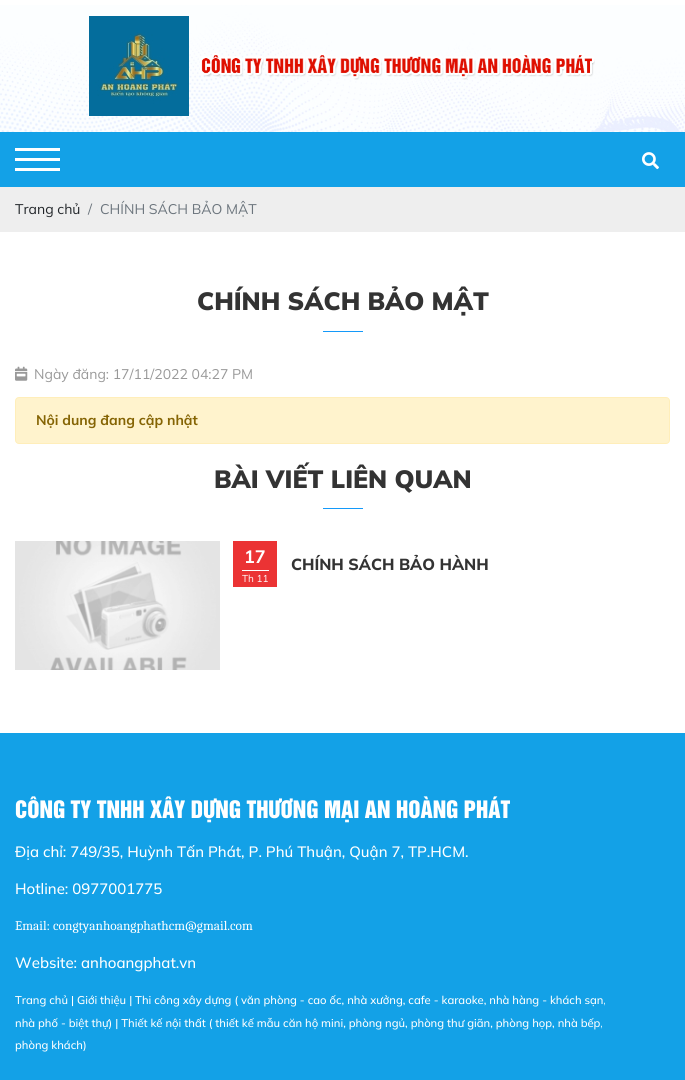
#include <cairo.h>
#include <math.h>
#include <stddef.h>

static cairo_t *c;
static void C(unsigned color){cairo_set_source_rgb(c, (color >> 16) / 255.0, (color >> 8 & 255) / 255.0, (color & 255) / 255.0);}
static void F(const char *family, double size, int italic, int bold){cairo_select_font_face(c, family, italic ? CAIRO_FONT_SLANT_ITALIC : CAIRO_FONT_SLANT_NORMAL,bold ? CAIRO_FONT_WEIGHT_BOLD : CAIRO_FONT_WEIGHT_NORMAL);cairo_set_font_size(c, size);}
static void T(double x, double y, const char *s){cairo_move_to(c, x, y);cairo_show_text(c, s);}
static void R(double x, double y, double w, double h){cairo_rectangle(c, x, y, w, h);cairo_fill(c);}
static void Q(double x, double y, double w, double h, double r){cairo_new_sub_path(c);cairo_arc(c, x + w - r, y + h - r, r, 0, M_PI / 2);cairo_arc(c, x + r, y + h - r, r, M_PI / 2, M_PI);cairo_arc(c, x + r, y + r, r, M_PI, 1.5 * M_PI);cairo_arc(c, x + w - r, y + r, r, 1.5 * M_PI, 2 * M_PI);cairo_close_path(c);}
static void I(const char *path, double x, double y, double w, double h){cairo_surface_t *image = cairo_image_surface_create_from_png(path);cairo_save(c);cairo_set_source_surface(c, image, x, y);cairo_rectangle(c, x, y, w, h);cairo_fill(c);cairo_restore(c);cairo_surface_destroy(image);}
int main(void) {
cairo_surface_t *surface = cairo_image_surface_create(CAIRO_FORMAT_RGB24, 685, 1080);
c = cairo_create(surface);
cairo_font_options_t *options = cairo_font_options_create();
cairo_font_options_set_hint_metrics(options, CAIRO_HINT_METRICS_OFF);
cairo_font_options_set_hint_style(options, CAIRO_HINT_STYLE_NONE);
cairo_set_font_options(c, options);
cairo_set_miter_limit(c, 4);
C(0xffffff);
cairo_paint(c);
I("1.png",0,5,685,127);
I("2.png",89,16,100,100);
I("3.png",200,53,395,27);
C(0x13a1e7);
R(0,132,685,55);
C(0xffffff);
R(15,148,45,3);
R(15,158,45,3);
R(15,168,45,3);
I("4.png",642,152,17,18);
C(0xeeeeee);
R(0,187,685,45);
F("Mulish",14,0,0);
C(0x212529);
T(15,214,"Trang chủ");
C(0x6c757d);
T(88,214,"/");
T(100,214,"CHÍNH SÁCH BẢO MẬT");
F("Mulish Black",25,0,0);
C(0x333333);
T(197,310,"CHÍNH SÁCH BẢO MẬT");
C(0x1499f9);
R(323,331,40,1);
I("5.png",15,366,13,15);
F("Mulish",14,0,0);
C(0x999999);
T(34,379,"Ngày đăng: 17/11/2022 04:27 PM");
C(0xfff3cd);
Q(15.5,397.5,654,46,3.5);
cairo_fill_preserve(c);
C(0xffeeba);
cairo_set_line_width(c,1);
cairo_stroke(c);
F("Mulish",14,0,1);
C(0x856404);
T(36,425,"Nội dung đang cập nhật");
F("Mulish Black",25,0,0);
C(0x333333);
T(214,488,"BÀI VIẾT LIÊN QUAN");
C(0x1499f9);
R(323,508,40,1);
I("6.png",15,541,205,129);
C(0xeb3334);
R(233,541,44,46);
C(0xffffff);
R(242,570,27,1);
F("Mulish",18,0,1);
T(244,563,"17");
F("Mulish",10,0,0);
T(242,582,"Th 11");
F("Mulish ExtraBold",16,0,0);
C(0x333333);
T(291,570,"CHÍNH SÁCH BẢO HÀNH");
C(0x13a1e7);
R(0,733,685,347);
F("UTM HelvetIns",22,0,0);
C(0xffffff);
T(15,818,"CÔNG TY TNHH XÂY DỰNG THƯƠNG MẠI AN HOÀNG PHÁT");
F("Mulish Medium",15,0,0);
T(15,857,"Địa chỉ: 749/35, Huỳnh Tấn Phát, P. Phú Thuận, Quận 7, TP.HCM.");
T(15,894,"Hotline: 0977001775");
F("Caladea",13.3,0,0);
T(15,930,"Email: congtyanhoangphathcm@gmail.com");
F("Mulish Medium",15,0,0);
T(15,968,"Website: anhoangphat.vn");
F("Mulish Medium",11.25,0,0);
T(15,1004,"Trang chủ | Giới thiệu | Thi công xây dựng ( văn phòng - cao ốc, nhà xưởng, cafe - karaoke, nhà hàng - khách sạn,");
T(15,1027,"nhà phố - biệt thự) | Thiết kế nội thất ( thiết kế mẫu căn hộ mini, phòng ngủ, phòng thư giãn, phòng họp, nhà bếp,");
T(15,1049,"phòng khách)");
cairo_surface_write_to_png(surface, "o.png");
cairo_font_options_destroy(options);
cairo_destroy(c);
cairo_surface_destroy(surface);
return 0;
}
